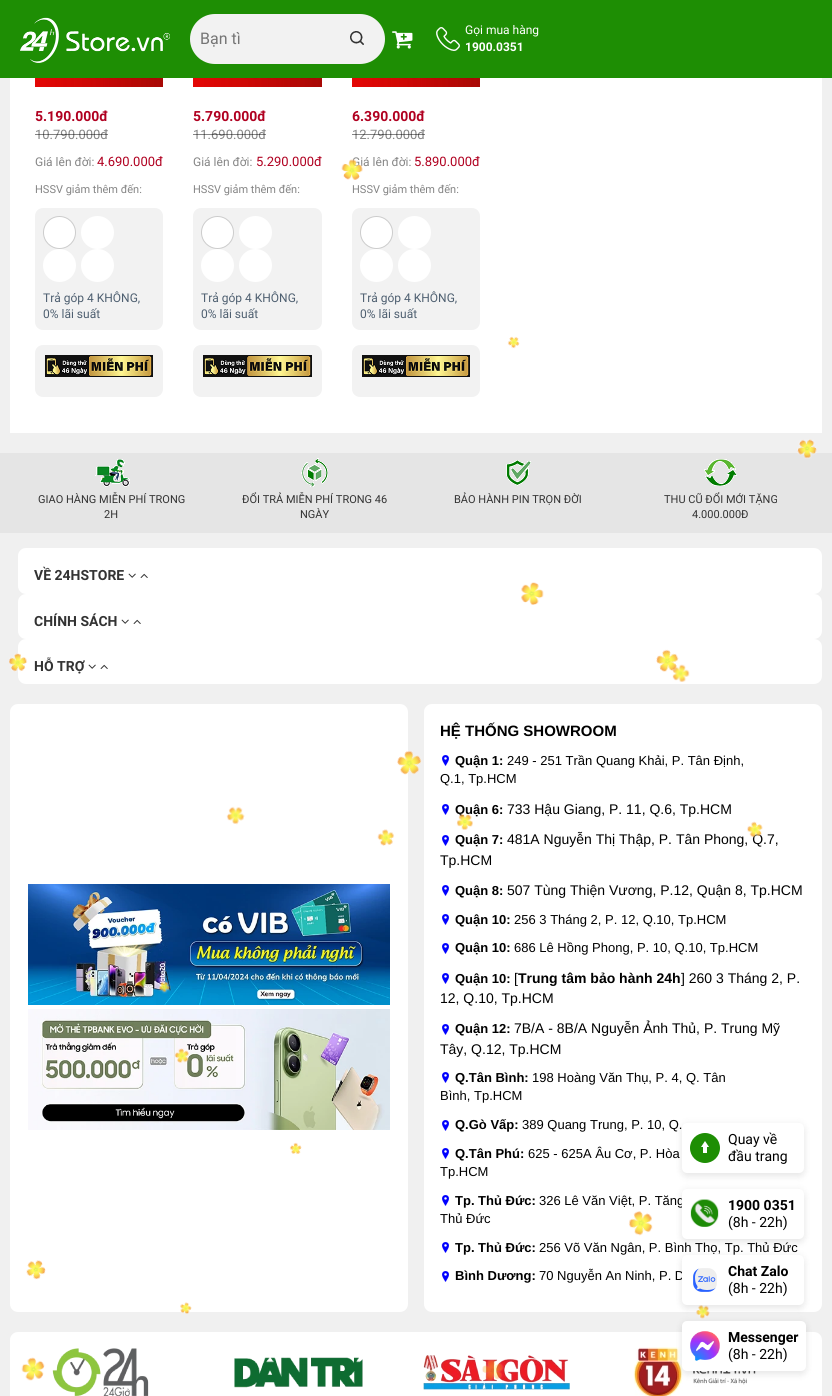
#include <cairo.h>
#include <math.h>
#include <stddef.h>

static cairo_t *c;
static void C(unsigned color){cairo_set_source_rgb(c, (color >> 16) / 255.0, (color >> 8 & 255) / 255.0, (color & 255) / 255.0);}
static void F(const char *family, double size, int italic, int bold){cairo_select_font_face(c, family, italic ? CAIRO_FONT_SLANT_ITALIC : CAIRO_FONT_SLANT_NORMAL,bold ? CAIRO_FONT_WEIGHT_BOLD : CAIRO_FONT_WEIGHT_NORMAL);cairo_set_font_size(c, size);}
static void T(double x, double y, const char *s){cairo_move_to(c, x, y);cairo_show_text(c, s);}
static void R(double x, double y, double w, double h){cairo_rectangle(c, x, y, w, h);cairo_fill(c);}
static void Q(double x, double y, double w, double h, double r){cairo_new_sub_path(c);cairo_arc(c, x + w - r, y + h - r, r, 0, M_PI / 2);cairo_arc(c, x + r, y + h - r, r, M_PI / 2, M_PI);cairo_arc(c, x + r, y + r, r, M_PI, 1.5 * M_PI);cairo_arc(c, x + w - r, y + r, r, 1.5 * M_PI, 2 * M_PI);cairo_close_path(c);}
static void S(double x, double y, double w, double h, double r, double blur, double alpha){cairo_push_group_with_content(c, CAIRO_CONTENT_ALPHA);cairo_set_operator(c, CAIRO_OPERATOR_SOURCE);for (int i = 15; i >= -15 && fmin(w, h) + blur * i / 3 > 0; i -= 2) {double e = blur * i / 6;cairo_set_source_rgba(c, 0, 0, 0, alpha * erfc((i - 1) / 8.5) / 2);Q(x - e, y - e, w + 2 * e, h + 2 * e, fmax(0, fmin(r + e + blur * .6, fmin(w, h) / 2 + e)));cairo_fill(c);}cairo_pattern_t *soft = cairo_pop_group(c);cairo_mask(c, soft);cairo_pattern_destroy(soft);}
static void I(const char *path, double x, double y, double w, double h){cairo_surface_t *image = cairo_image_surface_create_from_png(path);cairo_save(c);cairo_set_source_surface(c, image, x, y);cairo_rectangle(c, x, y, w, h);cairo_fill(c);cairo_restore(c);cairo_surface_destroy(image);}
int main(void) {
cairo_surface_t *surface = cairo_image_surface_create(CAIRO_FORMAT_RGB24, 832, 1396);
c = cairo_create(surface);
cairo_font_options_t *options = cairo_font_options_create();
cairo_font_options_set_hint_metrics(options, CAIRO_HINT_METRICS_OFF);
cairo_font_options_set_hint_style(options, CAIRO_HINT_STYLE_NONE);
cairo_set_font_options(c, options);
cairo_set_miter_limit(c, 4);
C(0xf0f0f0);
cairo_paint(c);
C(0x1e8e04);
R(0,0,832,78);
I("1.png",20,17,150,46);
C(0xf2f2f2);
Q(190,14,195,50,25);
cairo_fill(c);
F("Roboto",16,0,0);
C(0x757575);
T(200,44,"Bạn tì");
I("2.png",350,31,14,14);
I("3.png",392,31,21,18);
I("4.png",436,27,24,24);
F("Roboto",12,0,0);
C(0xffffff);
T(465,34,"Gọi mua hàng");
F("Roboto",12,0,1);
T(465,51,"1900.0351");
R(10,78,812,355);
I("5.png",35,78,128,9);
F("Roboto",14,0,1);
C(0xb00020);
T(35,121,"5.190.000đ");
F("Roboto",13,0,0);
C(0x858585);
T(35,139,"10.790.000đ");
cairo_set_source_rgba(c,0,0,0,0.48);
R(35,134,73,1);
F("Roboto",12,0,0);
C(0x858585);
T(35,166,"Giá lên đời:");
F("Roboto",13,0,0);
C(0xb00020);
T(97,166,"4.690.000đ");
F("Roboto",11,0,0);
C(0x858585);
T(35,193,"HSSV giảm thêm đến:");
C(0xf2f2f2);
Q(35,208,128,122,8);
cairo_fill(c);
C(0xffffff);
cairo_arc(c,59.5,232.5,16,0,2 * M_PI);
cairo_fill_preserve(c);
C(0xcccccc);
cairo_set_line_width(c,1);
cairo_stroke(c);
C(0xffffff);
cairo_arc(c,97.5,232.5,16.5,0,2 * M_PI);
cairo_fill(c);
cairo_arc(c,59.5,265.5,16.5,0,2 * M_PI);
cairo_fill(c);
cairo_arc(c,97.5,265.5,16.5,0,2 * M_PI);
cairo_fill(c);
F("Roboto",12,0,0);
C(0x4e5f70);
T(43,302,"Trả góp 4 KHÔNG,");
T(43,318,"0% lãi suất");
C(0xf2f2f2);
Q(35,345,128,52,8);
cairo_fill(c);
I("6.png",45,355,108,22);
I("7.png",193,78,129,9);
F("Roboto",14,0,1);
C(0xb00020);
T(193,121,"5.790.000đ");
F("Roboto",13,0,0);
C(0x858585);
T(193,139,"11.690.000đ");
cairo_set_source_rgba(c,0,0,0,0.48);
R(193,134,73,1);
F("Roboto",12,0,0);
C(0x858585);
T(193,166,"Giá lên đời:");
F("Roboto",13,0,0);
C(0xb00020);
T(256,166,"5.290.000đ");
F("Roboto",11,0,0);
C(0x858585);
T(193,193,"HSSV giảm thêm đến:");
C(0xf2f2f2);
Q(193,208,129,122,8);
cairo_fill(c);
C(0xffffff);
cairo_arc(c,217.5,232.5,16,0,2 * M_PI);
cairo_fill_preserve(c);
C(0xcccccc);
cairo_stroke(c);
C(0xffffff);
cairo_arc(c,255.5,232.5,16.5,0,2 * M_PI);
cairo_fill(c);
cairo_arc(c,217.5,265.5,16.5,0,2 * M_PI);
cairo_fill(c);
cairo_arc(c,255.5,265.5,16.5,0,2 * M_PI);
cairo_fill(c);
F("Roboto",12,0,0);
C(0x4e5f70);
T(201,302,"Trả góp 4 KHÔNG,");
T(201,318,"0% lãi suất");
C(0xf2f2f2);
Q(193,345,129,52,8);
cairo_fill(c);
I("8.png",203,355,109,22);
I("5.png",352,78,128,9);
F("Roboto",14,0,1);
C(0xb00020);
T(352,121,"6.390.000đ");
F("Roboto",13,0,0);
C(0x858585);
T(352,139,"12.790.000đ");
cairo_set_source_rgba(c,0,0,0,0.48);
R(352,134,73,1);
F("Roboto",12,0,0);
C(0x858585);
T(352,166,"Giá lên đời:");
F("Roboto",13,0,0);
C(0xb00020);
T(414,166,"5.890.000đ");
F("Roboto",11,0,0);
C(0x858585);
T(352,193,"HSSV giảm thêm đến:");
C(0xf2f2f2);
Q(352,208,128,122,8);
cairo_fill(c);
C(0xffffff);
cairo_arc(c,376.5,232.5,16,0,2 * M_PI);
cairo_fill_preserve(c);
C(0xcccccc);
cairo_stroke(c);
C(0xffffff);
cairo_arc(c,414.5,232.5,16.5,0,2 * M_PI);
cairo_fill(c);
cairo_arc(c,376.5,265.5,16.5,0,2 * M_PI);
cairo_fill(c);
cairo_arc(c,414.5,265.5,16.5,0,2 * M_PI);
cairo_fill(c);
F("Roboto",12,0,0);
C(0x4e5f70);
T(360,302,"Trả góp 4 KHÔNG,");
T(360,318,"0% lãi suất");
C(0xf2f2f2);
Q(352,345,128,52,8);
cairo_fill(c);
I("6.png",362,355,108,22);
C(0xe5e5e5);
R(0,453,832,80);
I("9.png",95,459,35,28);
F("Roboto",11,0,0);
C(0x333333);
T(38,503,"GIAO HÀNG MIỄN PHÍ TRONG");
T(104,518,"2H");
I("10.png",301,458,27,29);
T(242,503,"ĐỔI TRẢ MIỄN PHÍ TRONG 46");
T(300,518,"NGÀY");
I("11.png",506,460,25,26);
T(454,503,"BẢO HÀNH PIN TRỌN ĐỜI");
I("12.png",704,459,33,27);
T(664,503,"THU CŨ ĐỔI MỚI TẶNG");
T(692,518,"4.000.000Đ");
I("13.png",341,158,22,22);
I("14.png",507,336,13,13);
I("15.png",797,439,20,20);
C(0xffffff);
Q(18,548,804,46,8);
cairo_fill(c);
Q(18,594,804,45,8);
cairo_fill(c);
I("16.png",521,582,23,23);
Q(18,639,804,45,8);
cairo_fill(c);
I("17.png",9,653,19,19);
I("19.png",672,664,18,18);
I("18.png",656,649,23,23);
Q(10,704,398,608,8);
cairo_fill(c);
I("20.png",397,750,25,25);
I("21.png",226,806,19,19);
I("22.png",377,829,18,17);
Q(424,704,398,608,8);
cairo_fill(c);
F("Liberation Sans",13,0,1);
C(0x000000);
T(455,814,"Quận 6:");
I("23.png",456,813,17,17);
F("Liberation Sans",14,0,0);
T(507,844,"481A Nguyễn Thị Thập, P. Tân Phong, Q.7,");
I("24.png",747,821,16,18);
I("36.png",28,884,362,121);
I("25.png",158,980,13,14);
I("37.png",28,1009,362,121);
I("26.png",174,1048,16,15);
I("27.png",289,1142,13,13);
I("28.png",628,1211,25,25);
I("29.png",26,1260,20,20);
I("30.png",180,1302,12,12);
I("31.png",696,1305,14,14);
C(0xffffff);
Q(10,1332,812,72,8);
cairo_fill(c);
I("32.png",21,1357,24,24);
I("41.png",423,1355,147,35);
I("33.png",481,1360,23,21);
F("Roboto",14,0,1);
C(0x333333);
T(34,580,"VỀ 24HSTORE");
I("34.png",128,573,8,5);
I("35.png",140,573,8,5);
T(34,626,"CHÍNH SÁCH");
I("34.png",121,619,8,5);
I("35.png",133,619,8,5);
T(34,671,"HỖ TRỢ");
I("34.png",88,664,8,5);
I("35.png",100,664,8,5);
F("Liberation Sans",15,0,1);
C(0x000000);
T(440,736,"HỆ THỐNG SHOWROOM");
I("38.png",442,755,7,11);
F("Liberation Sans",13,0,1);
T(455,765,"Quận 1:");
F("Liberation Sans",13,0,0);
T(507,765,"249 - 251 Trần Quang Khải, P. Tân Định,");
T(440,783,"Q.1, Tp.HCM");
I("38.png",442,804,7,11);
F("Liberation Sans",14,0,0);
T(507,814,"733 Hậu Giang, P. 11, Q.6, Tp.HCM");
I("38.png",442,835,7,11);
F("Liberation Sans",13,0,1);
T(455,844,"Quận 7:");
F("Liberation Sans",14,0,0);
T(440,865,"Tp.HCM");
I("38.png",442,885,7,11);
F("Liberation Sans",13,0,1);
T(455,895,"Quận 8:");
F("Liberation Sans",14,0,0);
T(507,895,"507 Tùng Thiện Vương, P.12, Quận 8, Tp.HCM");
I("38.png",442,914,7,11);
F("Liberation Sans",13,0,1);
T(455,924,"Quận 10:");
F("Liberation Sans",13,0,0);
T(514,924,"256 3 Tháng 2, P. 12, Q.10, Tp.HCM");
I("38.png",442,943,7,11);
F("Liberation Sans",13,0,1);
T(455,952,"Quận 10:");
F("Liberation Sans",13,0,0);
T(514,952,"686 Lê Hồng Phong, P. 10, Q.10, Tp.HCM");
I("38.png",442,973,7,11);
F("Liberation Sans",13,0,1);
T(455,983,"Quận 10:");
F("Liberation Sans",14,0,0);
T(514,983,"[");
F("Liberation Sans",14,0,1);
T(518,983,"Trung tâm bảo hành 24h");
F("Liberation Sans",14,0,0);
T(681,983,"] 260 3 Tháng 2, P.");
T(440,1003,"12, Q.10, Tp.HCM");
I("38.png",442,1024,7,11);
F("Liberation Sans",13,0,1);
T(455,1033,"Quận 12:");
F("Liberation Sans",14,0,0);
T(514,1033,"7B/A - 8B/A Nguyễn Ảnh Thủ, P. Trung Mỹ");
T(440,1054,"Tây, Q.12, Tp.HCM");
I("38.png",442,1072,7,11);
F("Liberation Sans",13,0,1);
T(455,1082,"Q.Tân Bình:");
F("Liberation Sans",13,0,0);
T(532,1082,"198 Hoàng Văn Thụ, P. 4, Q. Tân");
T(440,1100,"Bình, Tp.HCM");
I("38.png",442,1120,7,11);
F("Liberation Sans",13,0,1);
T(455,1129,"Q.Gò Vấp:");
F("Liberation Sans",13,0,0);
T(522,1129,"389 Quang Trung, P. 10, Q.");
I("38.png",442,1148,7,11);
F("Liberation Sans",13,0,1);
T(455,1158,"Q.Tân Phú:");
F("Liberation Sans",13,0,0);
T(528,1158,"625 - 625A Âu Cơ, P. Hòa");
T(440,1176,"Tp.HCM");
I("38.png",442,1195,7,11);
F("Liberation Sans",13,0,1);
T(455,1205,"Tp. Thủ Đức:");
F("Liberation Sans",13,0,0);
T(539,1205,"326 Lê Văn Việt, P. Tăng");
T(440,1223,"Thủ Đức");
I("38.png",442,1242,7,11);
F("Liberation Sans",13,0,1);
T(455,1252,"Tp. Thủ Đức:");
F("Liberation Sans",13,0,0);
T(539,1252,"256 Võ Văn Ngân, P. Bình Thọ, Tp. Thủ Đức");
I("38.png",442,1271,7,11);
F("Liberation Sans",13,0,1);
T(455,1280,"Bình Dương:");
F("Liberation Sans",13,0,0);
T(539,1280,"70 Nguyễn An Ninh, P. D");
I("39.png",52,1348,97,48);
I("40.png",234,1357,129,31);
I("42.png",633,1347,123,49);
C(0x000000);
S(682,1127,122,50,5,4,.07);
S(682,1123,122,50,5,4,.05);
C(0xffffff);
Q(682,1123,122,50,5);
cairo_fill(c);
C(0x1e8e04);
cairo_arc(c,705,1148,15,0,2 * M_PI);
cairo_fill(c);
C(0xffffff);
cairo_new_path(c);
cairo_move_to(c,705,1141);
cairo_line_to(c,701,1147);
cairo_line_to(c,703,1147);
cairo_line_to(c,703,1153);
cairo_line_to(c,707,1153);
cairo_line_to(c,707,1147);
cairo_line_to(c,709,1147);
cairo_close_path(c);
cairo_fill(c);
F("Roboto",14,0,0);
C(0x000000);
T(728,1144,"Quay về");
T(728,1161,"đầu trang");
C(0x000000);
S(682,1193,122,50,5,4,.07);
S(682,1189,122,50,5,4,.05);
C(0xffffff);
Q(682,1189,122,50,5);
cairo_fill(c);
I("43.png",690,1199,29,28);
F("Roboto",14,0,1);
C(0x000000);
T(728,1210,"1900 0351");
F("Roboto",14,0,0);
T(728,1227,"(8h - 22h)");
C(0x000000);
S(682,1259,122,50,5,4,.07);
S(682,1255,122,50,5,4,.05);
C(0xffffff);
Q(682,1255,122,50,5);
cairo_fill(c);
I("44.png",693,1268,24,24);
F("Roboto",14,0,1);
C(0x000000);
T(728,1276,"Chat Zalo");
F("Roboto",14,0,0);
T(728,1293,"(8h - 22h)");
C(0x000000);
S(682,1325,124,50,5,4,.07);
S(682,1321,124,50,5,4,.05);
C(0xffffff);
Q(682,1321,124,50,5);
cairo_fill(c);
I("45.png",690,1331,30,30);
F("Roboto",14,0,1);
C(0x000000);
T(728,1342,"Messenger");
F("Roboto",14,0,0);
T(728,1359,"(8h - 22h)");
cairo_surface_write_to_png(surface, "o.png");
cairo_font_options_destroy(options);
cairo_destroy(c);
cairo_surface_destroy(surface);
return 0;
}
